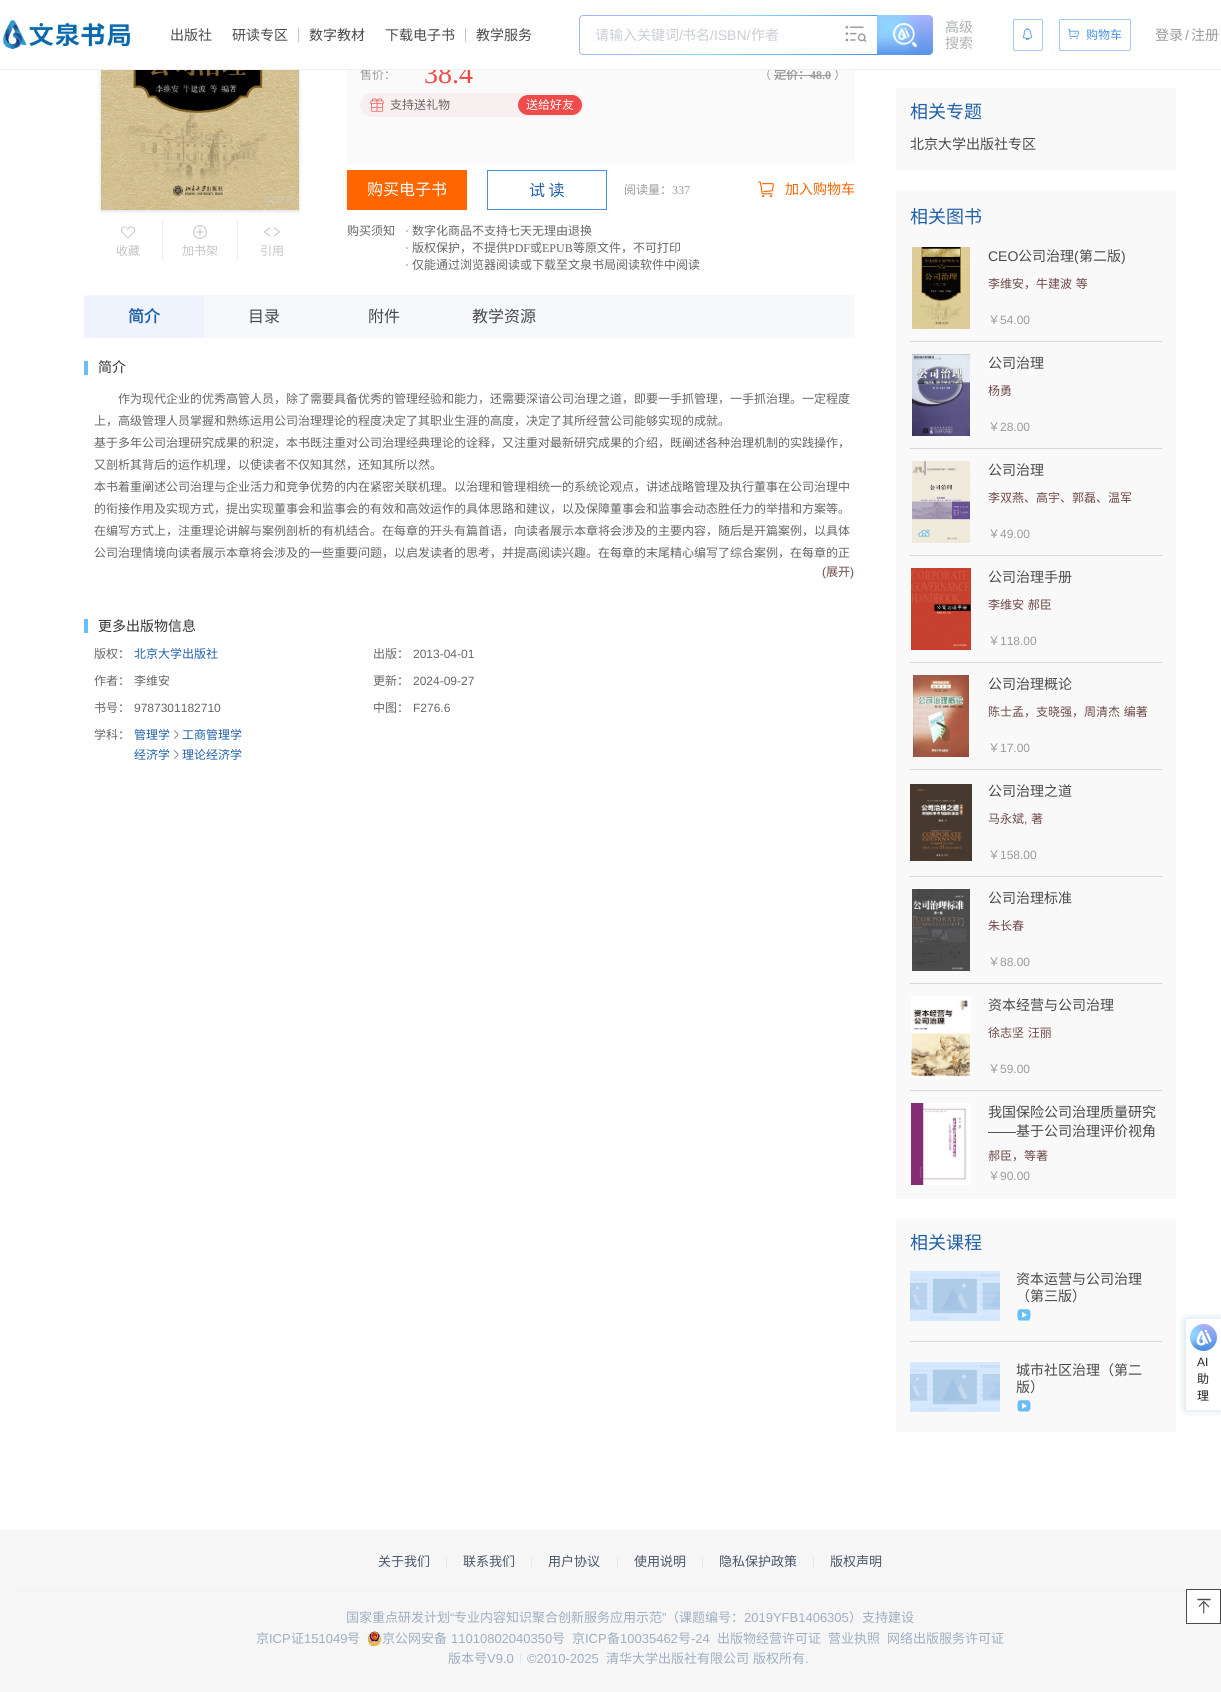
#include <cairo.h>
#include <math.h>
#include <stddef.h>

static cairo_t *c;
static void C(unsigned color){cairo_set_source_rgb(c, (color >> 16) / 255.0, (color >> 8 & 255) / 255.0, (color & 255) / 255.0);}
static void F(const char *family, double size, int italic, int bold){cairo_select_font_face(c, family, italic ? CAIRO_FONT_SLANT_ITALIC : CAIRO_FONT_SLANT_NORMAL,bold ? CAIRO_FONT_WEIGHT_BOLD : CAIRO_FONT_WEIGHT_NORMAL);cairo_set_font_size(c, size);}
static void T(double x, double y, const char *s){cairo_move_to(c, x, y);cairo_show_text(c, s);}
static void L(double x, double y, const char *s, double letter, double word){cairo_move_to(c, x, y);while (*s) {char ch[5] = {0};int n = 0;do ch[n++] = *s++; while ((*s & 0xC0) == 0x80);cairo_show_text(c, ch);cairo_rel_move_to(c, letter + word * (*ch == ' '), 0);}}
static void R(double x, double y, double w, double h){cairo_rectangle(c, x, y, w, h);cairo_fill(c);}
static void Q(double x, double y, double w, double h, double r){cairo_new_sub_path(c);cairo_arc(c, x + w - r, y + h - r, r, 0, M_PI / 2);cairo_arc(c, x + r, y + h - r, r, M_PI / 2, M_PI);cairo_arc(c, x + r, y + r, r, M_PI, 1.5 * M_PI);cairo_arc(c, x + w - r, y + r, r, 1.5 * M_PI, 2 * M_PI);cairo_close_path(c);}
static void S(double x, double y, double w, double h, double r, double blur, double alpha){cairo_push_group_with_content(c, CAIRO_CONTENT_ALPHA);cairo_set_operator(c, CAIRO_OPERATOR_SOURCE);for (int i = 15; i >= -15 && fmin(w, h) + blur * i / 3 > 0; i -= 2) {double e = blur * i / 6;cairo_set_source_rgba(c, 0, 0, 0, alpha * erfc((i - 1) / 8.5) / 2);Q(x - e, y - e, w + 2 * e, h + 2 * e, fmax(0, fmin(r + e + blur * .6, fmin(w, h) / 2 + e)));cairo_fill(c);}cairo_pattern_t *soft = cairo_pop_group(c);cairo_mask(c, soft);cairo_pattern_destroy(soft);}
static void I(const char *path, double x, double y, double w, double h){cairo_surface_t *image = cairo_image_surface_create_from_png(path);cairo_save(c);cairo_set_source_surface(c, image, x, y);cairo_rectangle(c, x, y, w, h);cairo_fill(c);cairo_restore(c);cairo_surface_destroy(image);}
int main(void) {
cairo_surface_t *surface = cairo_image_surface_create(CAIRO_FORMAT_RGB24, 1221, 1692);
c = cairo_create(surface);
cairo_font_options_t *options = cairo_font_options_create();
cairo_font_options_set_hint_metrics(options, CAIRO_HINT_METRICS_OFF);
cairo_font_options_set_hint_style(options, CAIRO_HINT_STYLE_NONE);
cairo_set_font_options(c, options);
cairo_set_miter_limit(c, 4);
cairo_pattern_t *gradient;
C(0xffffff);
cairo_paint(c);
I("6.png",101,70,198,140);
cairo_save(c);
cairo_set_fill_rule(c,CAIRO_FILL_RULE_EVEN_ODD);
cairo_new_path(c);
cairo_move_to(c,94,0);
cairo_line_to(c,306,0);
cairo_line_to(c,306,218);
cairo_line_to(c,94,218);
cairo_close_path(c);
cairo_move_to(c,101,-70);
cairo_line_to(c,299,-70);
cairo_line_to(c,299,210);
cairo_line_to(c,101,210);
cairo_close_path(c);
cairo_clip(c);
C(0x203041);
S(101,-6,198,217,0,2,.18);
cairo_restore(c);
C(0xfafafa);
R(347,70,508,94);
F("Noto Sans CJK SC",12,0,0);
C(0x9b9b9b);
T(360,79,"售价：");
F("Liberation Serif",28,0,0);
C(0xf04a49);
T(424,83,"38.4");
F("Noto Sans CJK SC",12,0,0);
C(0x9b9b9b);
T(759,79,"（");
F("Noto Sans CJK SC",12,0,1);
T(774,79,"定价：");
F("Noto Sans CJK SC",12,0,0);
T(834,79,"）");
C(0xeef0f2);
R(0,69,1221,1);
C(0xffffff);
R(98,0,738,69);
I("1.png",2,19,128,30);
F("Noto Sans CJK SC",14,0,0);
C(0x4a4a4a);
T(170,40,"出版社");
T(232,40,"研读专区");
C(0xbbc5cf);
R(298,28,1,14);
C(0x4a4a4a);
T(309,40,"数字教材");
T(385,40,"下载电子书");
C(0xbbc5cf);
R(465,28,1,14);
C(0x4a4a4a);
T(476,40,"教学服务");
gradient = cairo_pattern_create_linear(644,-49,813,120);
cairo_pattern_add_color_stop_rgba(gradient,0,0.659,0.69,0.996,1);
cairo_pattern_add_color_stop_rgba(gradient,.5,0.557,0.816,0.996,1);
cairo_pattern_add_color_stop_rgba(gradient,1,0.298,0.557,0.886,1);
cairo_set_source(c,gradient);
cairo_pattern_destroy(gradient);
cairo_new_path(c);
cairo_move_to(c,583,15);
cairo_line_to(c,877,15);
cairo_line_to(c,877,55);
cairo_line_to(c,583,55);
cairo_curve_to(c,581,55,579,53,579,51);
cairo_line_to(c,579,19);
cairo_curve_to(c,579,17,581,15,583,15);
cairo_close_path(c);
cairo_fill(c);
C(0xffffff);
cairo_new_path(c);
cairo_move_to(c,583,16);
cairo_line_to(c,877,16);
cairo_line_to(c,877,54);
cairo_line_to(c,583,54);
cairo_curve_to(c,581.5,54,580,52.5,580,51);
cairo_line_to(c,580,19);
cairo_curve_to(c,580,17.5,581.5,16,583,16);
cairo_close_path(c);
cairo_fill(c);
C(0xcaced2);
T(595,40,"请输入关键词");
F("Liberation Sans",14,0,0);
T(679,40,"/");
F("Noto Sans CJK SC",14,0,0);
T(682,40,"书名");
F("Liberation Sans",14,0,0);
T(710,40,"/ISBN/");
F("Noto Sans CJK SC",14,0,0);
T(751,40,"作者");
gradient = cairo_pattern_create_linear(905,15,905,55);
cairo_pattern_add_color_stop_rgba(gradient,0,0.667,0.694,1,1);
cairo_pattern_add_color_stop_rgba(gradient,1,0.341,0.576,0.902,1);
cairo_set_source(c,gradient);
cairo_pattern_destroy(gradient);
cairo_new_path(c);
cairo_move_to(c,877,15);
cairo_line_to(c,929,15);
cairo_curve_to(c,931,15,933,17,933,19);
cairo_line_to(c,933,51);
cairo_curve_to(c,933,53,931,55,929,55);
cairo_line_to(c,877,55);
cairo_close_path(c);
cairo_fill(c);
cairo_save(c);
cairo_rectangle(c,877,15,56,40);
cairo_clip(c);
C(0x8ed6ff);
S(873,11,34,32,0,8,1);
cairo_restore(c);
I("2.png",892,23,25,25);
I("3.png",845,25,22,17);
C(0xadb1b3);
T(945,32,"高级");
T(945,48,"搜索");
Q(1013.5,19.5,29,31,1.5);
C(0xa5c8f1);
cairo_set_line_width(c,1);
cairo_stroke(c);
I("4.png",1022,28,11,12);
Q(1059.5,19.5,71,31,1.5);
cairo_stroke(c);
I("5.png",1068,28,11,12);
F("Noto Sans CJK SC",12,0,0);
C(0x4a90e2);
T(1086,39,"购物车");
F("Noto Sans CJK SC",14,0,0);
C(0x9b9b9b);
T(1155,40,"登录");
F("Liberation Sans",14,0,0);
T(1185,40,"/");
F("Noto Sans CJK SC",14,0,0);
T(1191,40,"注册");
I("7.png",121,226,14,12);
F("Noto Sans CJK SC",12,0,0);
C(0xc3c3c3);
T(116,255,"收藏");
C(0xeeeeee);
R(237,221,1,39);
R(162,221,1,39);
I("8.png",193,225,14,14);
C(0xc3c3c3);
T(182,255,"加书架");
I("9.png",264,227,16,10);
T(260,255,"引用");
F("Liberation Serif",12,0,1);
C(0x9b9b9b);
T(810,79,"48.0");
R(774,75,57,1);
C(0xf8f0f0);
Q(360,93,224,24,12);
cairo_fill(c);
I("10.png",370,98,14,14);
F("Noto Sans CJK SC",12,0,0);
C(0x666666);
T(390,109,"支持送礼物");
C(0xf04a49);
Q(518,95,64,20,10);
cairo_fill(c);
C(0xffffff);
T(526,109,"送给好友");
C(0xff6600);
R(347,170,120,40);
F("Noto Sans CJK SC",16,0,0);
C(0xffffff);
T(367,195,"购买电子书");
cairo_rectangle(c,487.5,170.5,119,39);
C(0x4a90e2);
cairo_stroke(c);
C(0x2160aa);
T(529,196,"试 读");
F("Noto Sans CJK SC",12,0,0);
C(0x9b9b9b);
T(624,194,"阅读量：");
F("Liberation Serif",12,0,0);
T(672,194,"337");
I("11.png",758,181,16,17);
F("Noto Sans CJK SC",14,0,0);
C(0xff6600);
T(785,194,"加入购物车");
F("Noto Sans CJK SC",12,0,0);
C(0x666666);
T(347,235,"购买须知");
F("Liberation Serif",12,0,0);
T(405,235,"·");
F("Noto Sans CJK SC",12,0,0);
T(412,235,"数字化商品不支持七天无理由退换");
F("Liberation Serif",12,0,0);
T(405,252,"·");
F("Noto Sans CJK SC",12,0,0);
T(412,252,"版权保护，不提供");
F("Liberation Serif",12,0,0);
T(508,252,"PDF");
F("Noto Sans CJK SC",12,0,0);
T(530,252,"或");
F("Liberation Serif",12,0,0);
T(542,252,"EPUB");
F("Noto Sans CJK SC",12,0,0);
T(573,252,"等原文件，不可打印");
F("Liberation Serif",12,0,0);
T(405,269,"·");
F("Noto Sans CJK SC",12,0,0);
T(412,269,"仅能通过浏览器阅读或下载至文泉书局阅读软件中阅读");
C(0xf6f8f9);
R(84,295,770,43);
C(0xeef3fe);
R(84,296,120,42);
F("Noto Sans CJK SC",16,0,1);
C(0x2160aa);
T(128,322,"简介");
F("Noto Sans CJK SC",16,0,0);
C(0x4a4a4a);
T(248,322,"目录");
T(368,322,"附件");
T(472,322,"教学资源");
C(0x68bef8);
R(84,361,4,14);
F("Noto Sans CJK SC",14,0,0);
C(0x333333);
T(98,372,"简介");
F("Noto Sans CJK SC",12,0,0);
C(0x666666);
T(118,403,"作为现代企业的优秀高管人员，除了需要具备优秀的管理经验和能力，还需要深谙公司治理之道，即要一手抓管理，一手抓治理。一定程度");
T(94,425,"上，高级管理人员掌握和熟练运用公司治理理论的程度决定了其职业生涯的高度，决定了其所经营公司能够实现的成就。");
T(94,447,"基于多年公司治理研究成果的积淀，本书既注重对公司治理经典理论的诠释，又注重对最新研究成果的介绍，既阐述各种治理机制的实践操作，");
T(94,469,"又剖析其背后的运作机理，以使读者不仅知其然，还知其所以然。");
T(94,491,"本书着重阐述公司治理与企业活力和竞争优势的内在紧密关联机理。以治理和管理相统一的系统论观点，讲述战略管理及执行董事在公司治理中");
T(94,513,"的衔接作用及实现方式，提出实现董事会和监事会的有效和高效运作的具体思路和建议，以及保障董事会和监事会动态胜任力的举措和方案等。");
T(94,535,"在编写方式上，注重理论讲解与案例剖析的有机结合。在每章的开头有篇首语，向读者展示本章将会涉及的主要内容，随后是开篇案例，以具体");
T(94,557,"公司治理情境向读者展示本章将会涉及的一些重要问题，以启发读者的思考，并提高阅读兴趣。在每章的末尾精心编写了综合案例，在每章的正");
F("Liberation Sans",12,0,0);
C(0x6e4a49);
T(822,576,"(");
F("Noto Sans CJK SC",12,0,0);
T(826,576,"展开");
F("Liberation Sans",12,0,0);
T(850,576,")");
C(0x68bef8);
R(84,619,4,14);
F("Noto Sans CJK SC",14,0,0);
C(0x333333);
T(98,631,"更多出版物信息");
F("Noto Sans CJK SC",12,0,0);
C(0x666666);
T(94,658,"版权：");
C(0x2160aa);
T(134,658,"北京大学出版社");
C(0x666666);
T(373,658,"出版：");
F("Liberation Sans",12,0,0);
T(413,658,"2013-04-01");
F("Noto Sans CJK SC",12,0,0);
T(94,685,"作者：");
T(134,685,"李维安");
T(373,685,"更新：");
F("Liberation Sans",12,0,0);
T(413,685,"2024-09-27");
F("Noto Sans CJK SC",12,0,0);
T(94,712,"书号：");
F("Liberation Sans",12,0,0);
T(134,712,"9787301182710");
F("Noto Sans CJK SC",12,0,0);
T(373,712,"中图：");
F("Liberation Sans",12,0,0);
T(413,712,"F276.6");
F("Noto Sans CJK SC",12,0,0);
T(94,739,"学科：");
C(0x2160aa);
T(134,739,"管理学");
I("12.png",174,730,5,9);
T(182,739,"工商管理学");
T(134,759,"经济学");
I("12.png",174,750,5,9);
T(182,759,"理论经济学");
C(0xf9f9f9);
R(896,88,280,83);
F("Noto Sans CJK SC",18,0,0);
C(0x2160aa);
T(910,118,"相关专题");
F("Noto Sans CJK SC",14,0,0);
C(0x4a4a4a);
T(910,149,"北京大学出版社专区");
C(0xf9f9f9);
R(896,191,280,1008);
F("Noto Sans CJK SC",18,0,0);
C(0x2160aa);
T(910,223,"相关图书");
I("13.png",912,247,58,82);
F("Liberation Sans",14,0,0);
C(0x4a4a4a);
T(988,261,"CEO");
F("Noto Sans CJK SC",14,0,0);
T(1018,261,"公司治理");
F("Liberation Sans",14,0,0);
T(1074,261,"(");
F("Noto Sans CJK SC",14,0,0);
T(1079,261,"第二版");
F("Liberation Sans",14,0,0);
T(1121,261,")");
F("Noto Sans CJK SC",12,0,0);
C(0x6e4a49);
L(988,288,"李维安，牛建波 等",0,1);
C(0x9b9b9b);
T(988,324,"￥");
F("Liberation Sans",12,0,0);
T(1000,324,"54.00");
C(0xd8d8d8);
R(910,341,252,1);
I("14.png",912,354,58,82);
F("Noto Sans CJK SC",14,0,0);
C(0x4a4a4a);
T(988,368,"公司治理");
F("Noto Sans CJK SC",12,0,0);
C(0x6e4a49);
T(988,395,"杨勇");
C(0x9b9b9b);
T(988,431,"￥");
F("Liberation Sans",12,0,0);
T(1000,431,"28.00");
C(0xd8d8d8);
R(910,448,252,1);
I("15.png",912,461,58,82);
F("Noto Sans CJK SC",14,0,0);
C(0x4a4a4a);
T(988,475,"公司治理");
F("Noto Sans CJK SC",12,0,0);
C(0x6e4a49);
T(988,502,"李双燕、高宇、郭磊、温军");
C(0x9b9b9b);
T(988,538,"￥");
F("Liberation Sans",12,0,0);
T(1000,538,"49.00");
C(0xd8d8d8);
R(910,555,252,1);
I("16.png",911,568,60,82);
F("Noto Sans CJK SC",14,0,0);
C(0x4a4a4a);
T(988,582,"公司治理手册");
F("Noto Sans CJK SC",12,0,0);
C(0x6e4a49);
L(988,609,"李维安 郝臣",0,1);
C(0x9b9b9b);
T(988,645,"￥");
F("Liberation Sans",12,0,0);
T(1000,645,"118.00");
C(0xd8d8d8);
R(910,662,252,1);
I("17.png",913,675,56,82);
F("Noto Sans CJK SC",14,0,0);
C(0x4a4a4a);
T(988,689,"公司治理概论");
F("Noto Sans CJK SC",12,0,0);
C(0x6e4a49);
L(988,716,"陈士孟，支晓强，周清杰 编著",0,1);
C(0x9b9b9b);
T(988,752,"￥");
F("Liberation Sans",12,0,0);
T(1000,752,"17.00");
C(0xd8d8d8);
R(910,769,252,1);
I("18.png",910,784,62,77);
F("Noto Sans CJK SC",14,0,0);
C(0x4a4a4a);
T(988,796,"公司治理之道");
F("Noto Sans CJK SC",12,0,0);
C(0x6e4a49);
T(988,823,"马永斌");
F("Liberation Sans",12,0,0);
T(1024,823,",");
F("Noto Sans CJK SC",12,0,0);
T(1031,823,"著");
C(0x9b9b9b);
T(988,859,"￥");
F("Liberation Sans",12,0,0);
T(1000,859,"158.00");
C(0xd8d8d8);
R(910,876,252,1);
I("19.png",912,889,58,82);
F("Noto Sans CJK SC",14,0,0);
C(0x4a4a4a);
T(988,903,"公司治理标准");
F("Noto Sans CJK SC",12,0,0);
C(0x6e4a49);
T(988,930,"朱长春");
C(0x9b9b9b);
T(988,966,"￥");
F("Liberation Sans",12,0,0);
T(1000,966,"88.00");
C(0xd8d8d8);
R(910,983,252,1);
I("20.png",911,996,60,82);
F("Noto Sans CJK SC",14,0,0);
C(0x4a4a4a);
T(988,1010,"资本经营与公司治理");
F("Noto Sans CJK SC",12,0,0);
C(0x6e4a49);
L(988,1037,"徐志坚 汪丽",0,1);
C(0x9b9b9b);
T(988,1073,"￥");
F("Liberation Sans",12,0,0);
T(1000,1073,"59.00");
C(0xd8d8d8);
R(910,1090,252,1);
I("21.png",911,1103,60,82);
F("Noto Sans CJK SC",14,0,0);
C(0x4a4a4a);
T(988,1117,"我国保险公司治理质量研究");
F("Liberation Sans",14,0,0);
T(988,1136,"——");
F("Noto Sans CJK SC",14,0,0);
T(1016,1136,"基于公司治理评价视角");
F("Noto Sans CJK SC",12,0,0);
C(0x6e4a49);
T(988,1160,"郝臣，等著");
C(0x9b9b9b);
T(988,1180,"￥");
F("Liberation Sans",12,0,0);
T(1000,1180,"90.00");
C(0xf9f9f9);
R(896,1219,280,213);
F("Noto Sans CJK SC",18,0,0);
C(0x2160aa);
T(910,1249,"相关课程");
I("22.png",910,1271,90,50);
F("Noto Sans CJK SC",14,0,0);
C(0x4a4a4a);
T(1016,1284,"资本运营与公司治理");
T(1016,1301,"（第三版）");
I("23.png",1017,1309,14,12);
C(0xd8d8d8);
R(910,1341,252,1);
I("22.png",910,1362,90,50);
C(0x4a4a4a);
T(1016,1375,"城市社区治理（第二");
T(1016,1392,"版）");
I("23.png",1017,1400,14,12);
cairo_save(c);
cairo_set_fill_rule(c,CAIRO_FILL_RULE_EVEN_ODD);
cairo_new_path(c);
cairo_move_to(c,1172,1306);
cairo_line_to(c,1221,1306);
cairo_line_to(c,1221,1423);
cairo_line_to(c,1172,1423);
cairo_close_path(c);
cairo_move_to(c,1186,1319);
cairo_line_to(c,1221,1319);
cairo_line_to(c,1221,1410);
cairo_line_to(c,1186,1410);
cairo_close_path(c);
cairo_clip(c);
C(0x2061aa);
S(1185,1319,35,91,0,4,.23);
cairo_restore(c);
I("24.png",1190,1324,27,27);
F("Liberation Sans",12,0,0);
C(0x212223);
T(1197,1366,"AI");
F("Noto Sans CJK SC",12,0,0);
T(1197,1383,"助");
T(1197,1400,"理");
C(0xf6f6f6);
R(0,1530,1221,162);
C(0xedf2f7);
R(16,1590,1170,1);
F("Noto Sans CJK SC",13,0,0);
C(0x4a5568);
T(378,1566,"关于我们");
C(0xe2e8f0);
R(446,1557,1,10);
C(0x4a5568);
T(463,1566,"联系我们");
C(0xe2e8f0);
R(531,1557,1,10);
C(0x4a5568);
T(548,1566,"用户协议");
C(0xe2e8f0);
R(617,1557,1,10);
C(0x4a5568);
T(634,1566,"使用说明");
C(0xe2e8f0);
R(702,1557,1,10);
C(0x4a5568);
T(719,1566,"隐私保护政策");
C(0xe2e8f0);
R(813,1557,1,10);
C(0x4a5568);
T(830,1566,"版权声明");
C(0xa0aec0);
T(346,1622,"国家重点研发计划");
F("Liberation Sans",13,0,0);
T(450,1622,"“");
F("Noto Sans CJK SC",13,0,0);
T(454,1622,"专业内容知识聚合创新服务应用示范");
F("Liberation Sans",13,0,0);
T(662,1622,"”");
F("Noto Sans CJK SC",13,0,0);
T(666,1622,"（课题编号：");
F("Liberation Sans",13,0,0);
T(744,1622,"2019YFB1406305");
F("Noto Sans CJK SC",13,0,0);
T(849,1622,"）支持建设");
T(256,1643,"京");
F("Liberation Sans",13,0,0);
T(269,1643,"ICP");
F("Noto Sans CJK SC",13,0,0);
T(291,1643,"证");
F("Liberation Sans",13,0,0);
T(304,1643,"151049");
F("Noto Sans CJK SC",13,0,0);
T(347,1643,"号");
I("25.png",367,1631,15,15);
T(382,1643,"京公网安备");
F("Liberation Sans",13,0,0);
T(451,1643,"11010802040350");
F("Noto Sans CJK SC",13,0,0);
T(552,1643,"号");
T(572,1643,"京");
F("Liberation Sans",13,0,0);
T(585,1643,"ICP");
F("Noto Sans CJK SC",13,0,0);
T(607,1643,"备");
F("Liberation Sans",13,0,0);
T(620,1643,"10035462");
F("Noto Sans CJK SC",13,0,0);
T(678,1643,"号");
F("Liberation Sans",13,0,0);
T(691,1643,"-24");
F("Noto Sans CJK SC",13,0,0);
T(717,1643,"出版物经营许可证");
T(828,1643,"营业执照");
T(887,1643,"网络出版服务许可证");
T(448,1663,"版本号");
F("Liberation Sans",13,0,0);
T(487,1663,"V9.0");
C(0xe2e8f0);
R(520,1654,1,10);
C(0xa0aec0);
T(527,1663,"©2010-2025");
F("Noto Sans CJK SC",13,0,0);
T(606,1663,"清华大学出版社有限公司");
T(753,1663,"版权所有");
F("Liberation Sans",13,0,0);
T(805,1663,".");
C(0xffffff);
cairo_rectangle(c,1186.5,1589.5,34,34);
cairo_fill_preserve(c);
C(0x4a4a4a);
cairo_stroke(c);
I("26.png",1197,1598,14,16);
cairo_surface_write_to_png(surface, "o.png");
cairo_font_options_destroy(options);
cairo_destroy(c);
cairo_surface_destroy(surface);
return 0;
}
